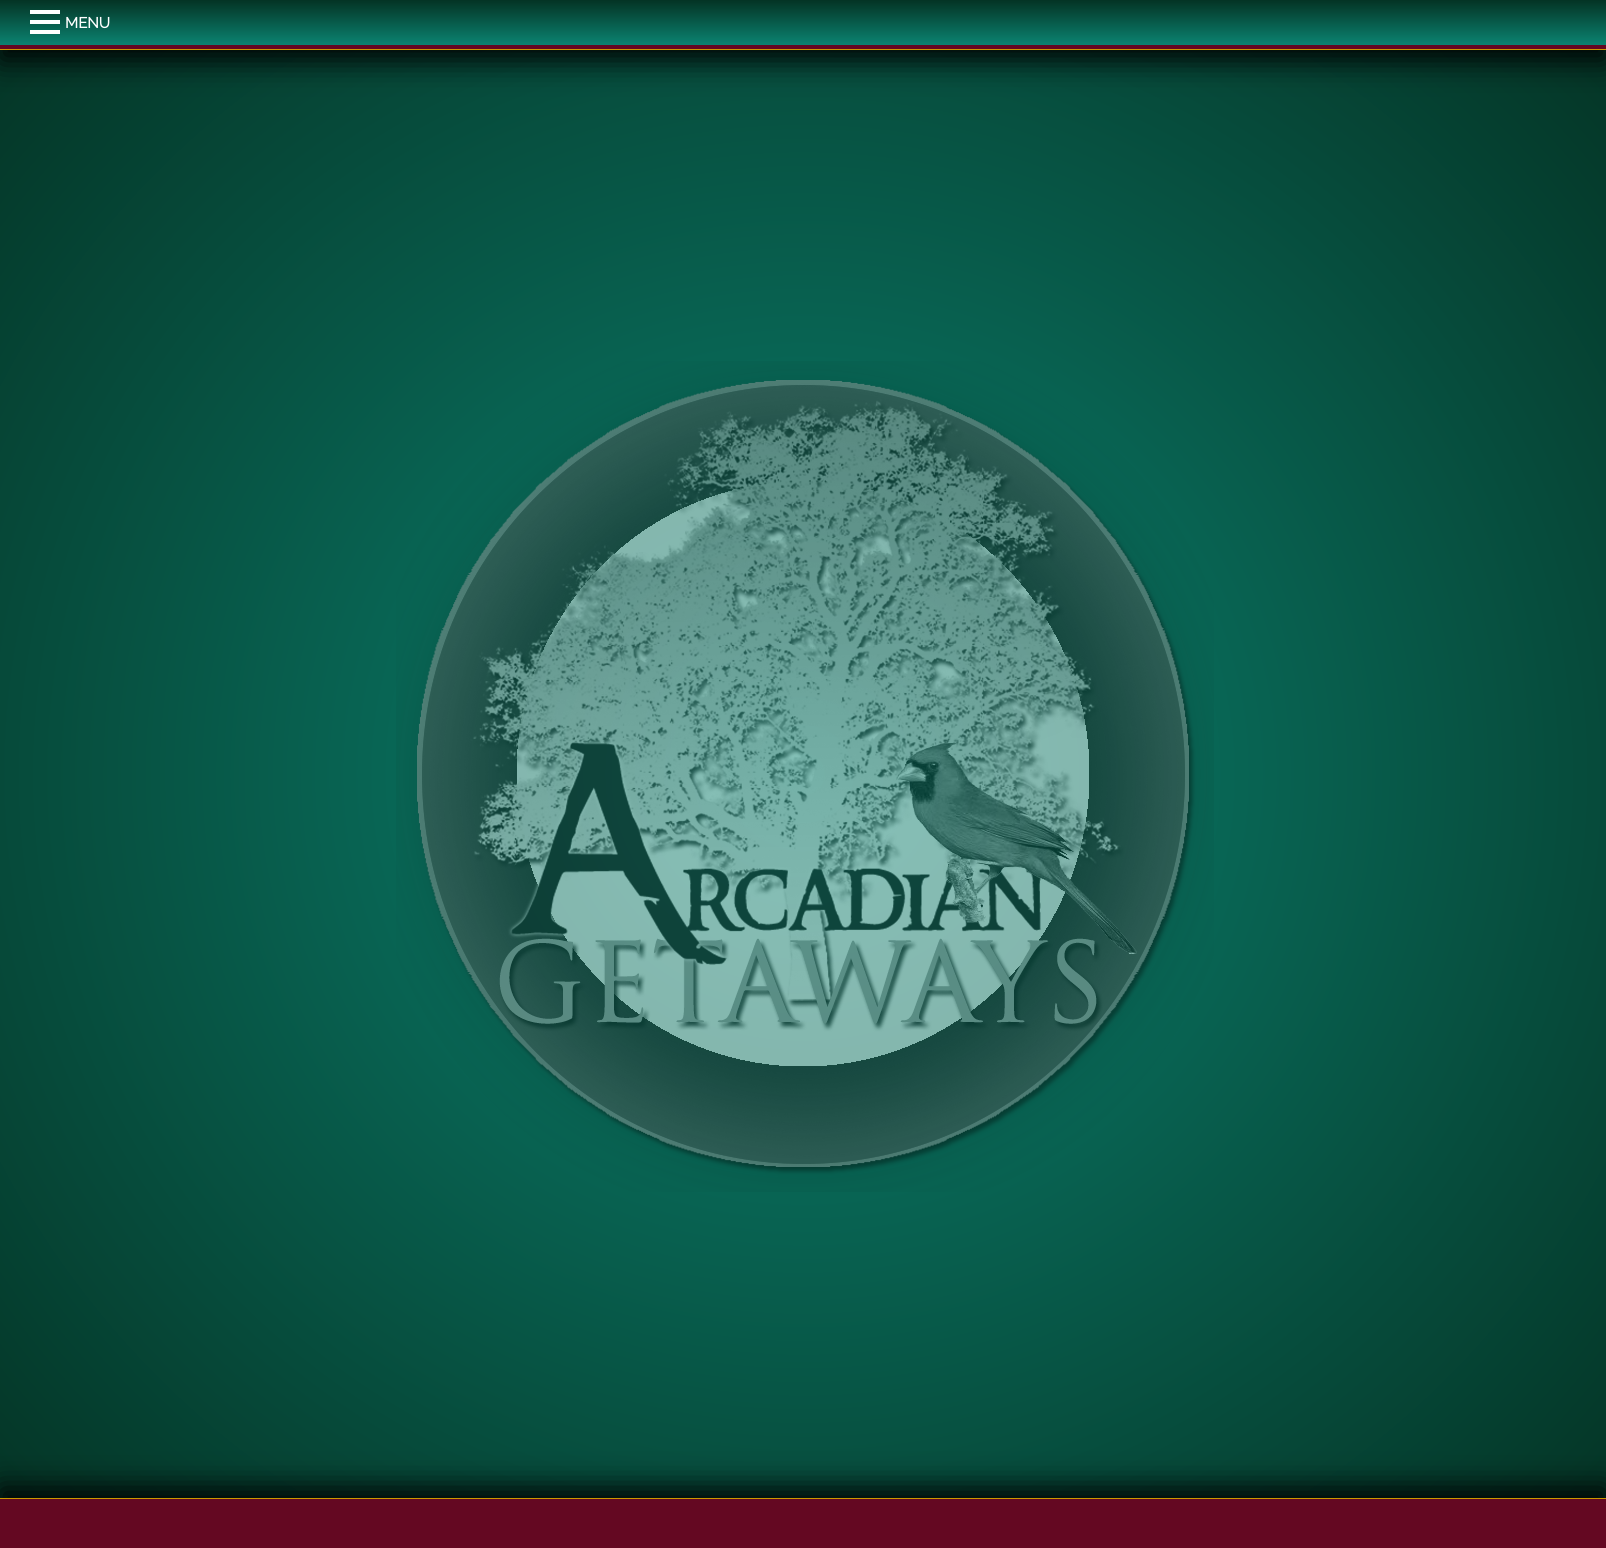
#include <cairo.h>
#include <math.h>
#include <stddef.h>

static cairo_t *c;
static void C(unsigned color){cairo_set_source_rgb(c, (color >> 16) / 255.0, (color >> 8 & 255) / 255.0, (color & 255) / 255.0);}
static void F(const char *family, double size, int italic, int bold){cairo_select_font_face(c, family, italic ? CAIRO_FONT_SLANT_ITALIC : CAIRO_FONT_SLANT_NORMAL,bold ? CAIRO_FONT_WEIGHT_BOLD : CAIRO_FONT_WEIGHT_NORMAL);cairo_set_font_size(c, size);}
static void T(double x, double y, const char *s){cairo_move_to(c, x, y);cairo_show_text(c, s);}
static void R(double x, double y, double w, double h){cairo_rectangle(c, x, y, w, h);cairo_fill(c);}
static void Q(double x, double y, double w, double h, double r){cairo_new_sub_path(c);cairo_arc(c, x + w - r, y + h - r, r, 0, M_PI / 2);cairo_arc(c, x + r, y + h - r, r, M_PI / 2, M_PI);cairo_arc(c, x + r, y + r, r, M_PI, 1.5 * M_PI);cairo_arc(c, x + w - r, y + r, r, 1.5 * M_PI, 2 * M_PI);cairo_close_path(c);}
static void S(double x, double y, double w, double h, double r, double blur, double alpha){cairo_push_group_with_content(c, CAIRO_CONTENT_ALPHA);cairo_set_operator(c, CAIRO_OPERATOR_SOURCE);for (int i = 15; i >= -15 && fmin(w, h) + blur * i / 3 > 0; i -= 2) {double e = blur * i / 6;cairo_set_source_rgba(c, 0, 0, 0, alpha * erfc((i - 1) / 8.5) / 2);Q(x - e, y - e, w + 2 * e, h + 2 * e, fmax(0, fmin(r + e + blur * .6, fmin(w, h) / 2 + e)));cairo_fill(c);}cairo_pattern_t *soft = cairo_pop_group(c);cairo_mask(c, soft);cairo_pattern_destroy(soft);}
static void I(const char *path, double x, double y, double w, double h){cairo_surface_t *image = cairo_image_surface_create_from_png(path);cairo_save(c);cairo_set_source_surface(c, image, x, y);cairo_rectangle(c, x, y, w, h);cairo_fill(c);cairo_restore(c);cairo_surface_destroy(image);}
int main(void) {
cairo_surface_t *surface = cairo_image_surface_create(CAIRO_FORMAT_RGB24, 1606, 1548);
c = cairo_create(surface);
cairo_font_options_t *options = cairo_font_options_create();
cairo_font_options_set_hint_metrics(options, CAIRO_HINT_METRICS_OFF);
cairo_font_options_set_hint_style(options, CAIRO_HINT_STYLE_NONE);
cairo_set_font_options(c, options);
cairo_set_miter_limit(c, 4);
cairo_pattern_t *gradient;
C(0xffffff);
cairo_paint(c);
gradient = cairo_pattern_create_radial(0,0,0,0,0,1);
cairo_pattern_set_matrix(gradient, &(cairo_matrix_t){1.0 / 1136, 0, 0, 1.0 / 1095, -1.0 * 803 / 1136, -1.0 * 774 / 1095});
cairo_pattern_add_color_stop_rgba(gradient,0,0.043,0.514,0.443,1);
cairo_pattern_add_color_stop_rgba(gradient,1,0.016,0.2,0.141,1);
cairo_set_source(c,gradient);
cairo_pattern_destroy(gradient);
R(0,50,1606,1448);
I("1.png",396,361,818,831);
C(0x000000);
S(0,10,1606,50,0,15,1);
C(0x640822);
R(0,45,1606,4);
C(0xcc9900);
R(0,49,1606,1);
gradient = cairo_pattern_create_linear(803,0,803,45);
cairo_pattern_add_color_stop_rgba(gradient,0,0.016,0.2,0.141,1);
cairo_pattern_add_color_stop_rgba(gradient,1,0.043,0.514,0.443,1);
cairo_set_source(c,gradient);
cairo_pattern_destroy(gradient);
R(0,0,1606,45);
C(0xffffff);
R(30,10,30,4);
R(30,20,30,4);
F("Raleway",15,0,1);
T(65,28,"MENU");
R(30,30,30,4);
C(0x000000);
S(0,1488,1606,50,0,15,1);
C(0x640822);
R(0,1499,1606,49);
C(0xcc9900);
R(0,1498,1606,1);
cairo_surface_write_to_png(surface, "o.png");
cairo_font_options_destroy(options);
cairo_destroy(c);
cairo_surface_destroy(surface);
return 0;
}
